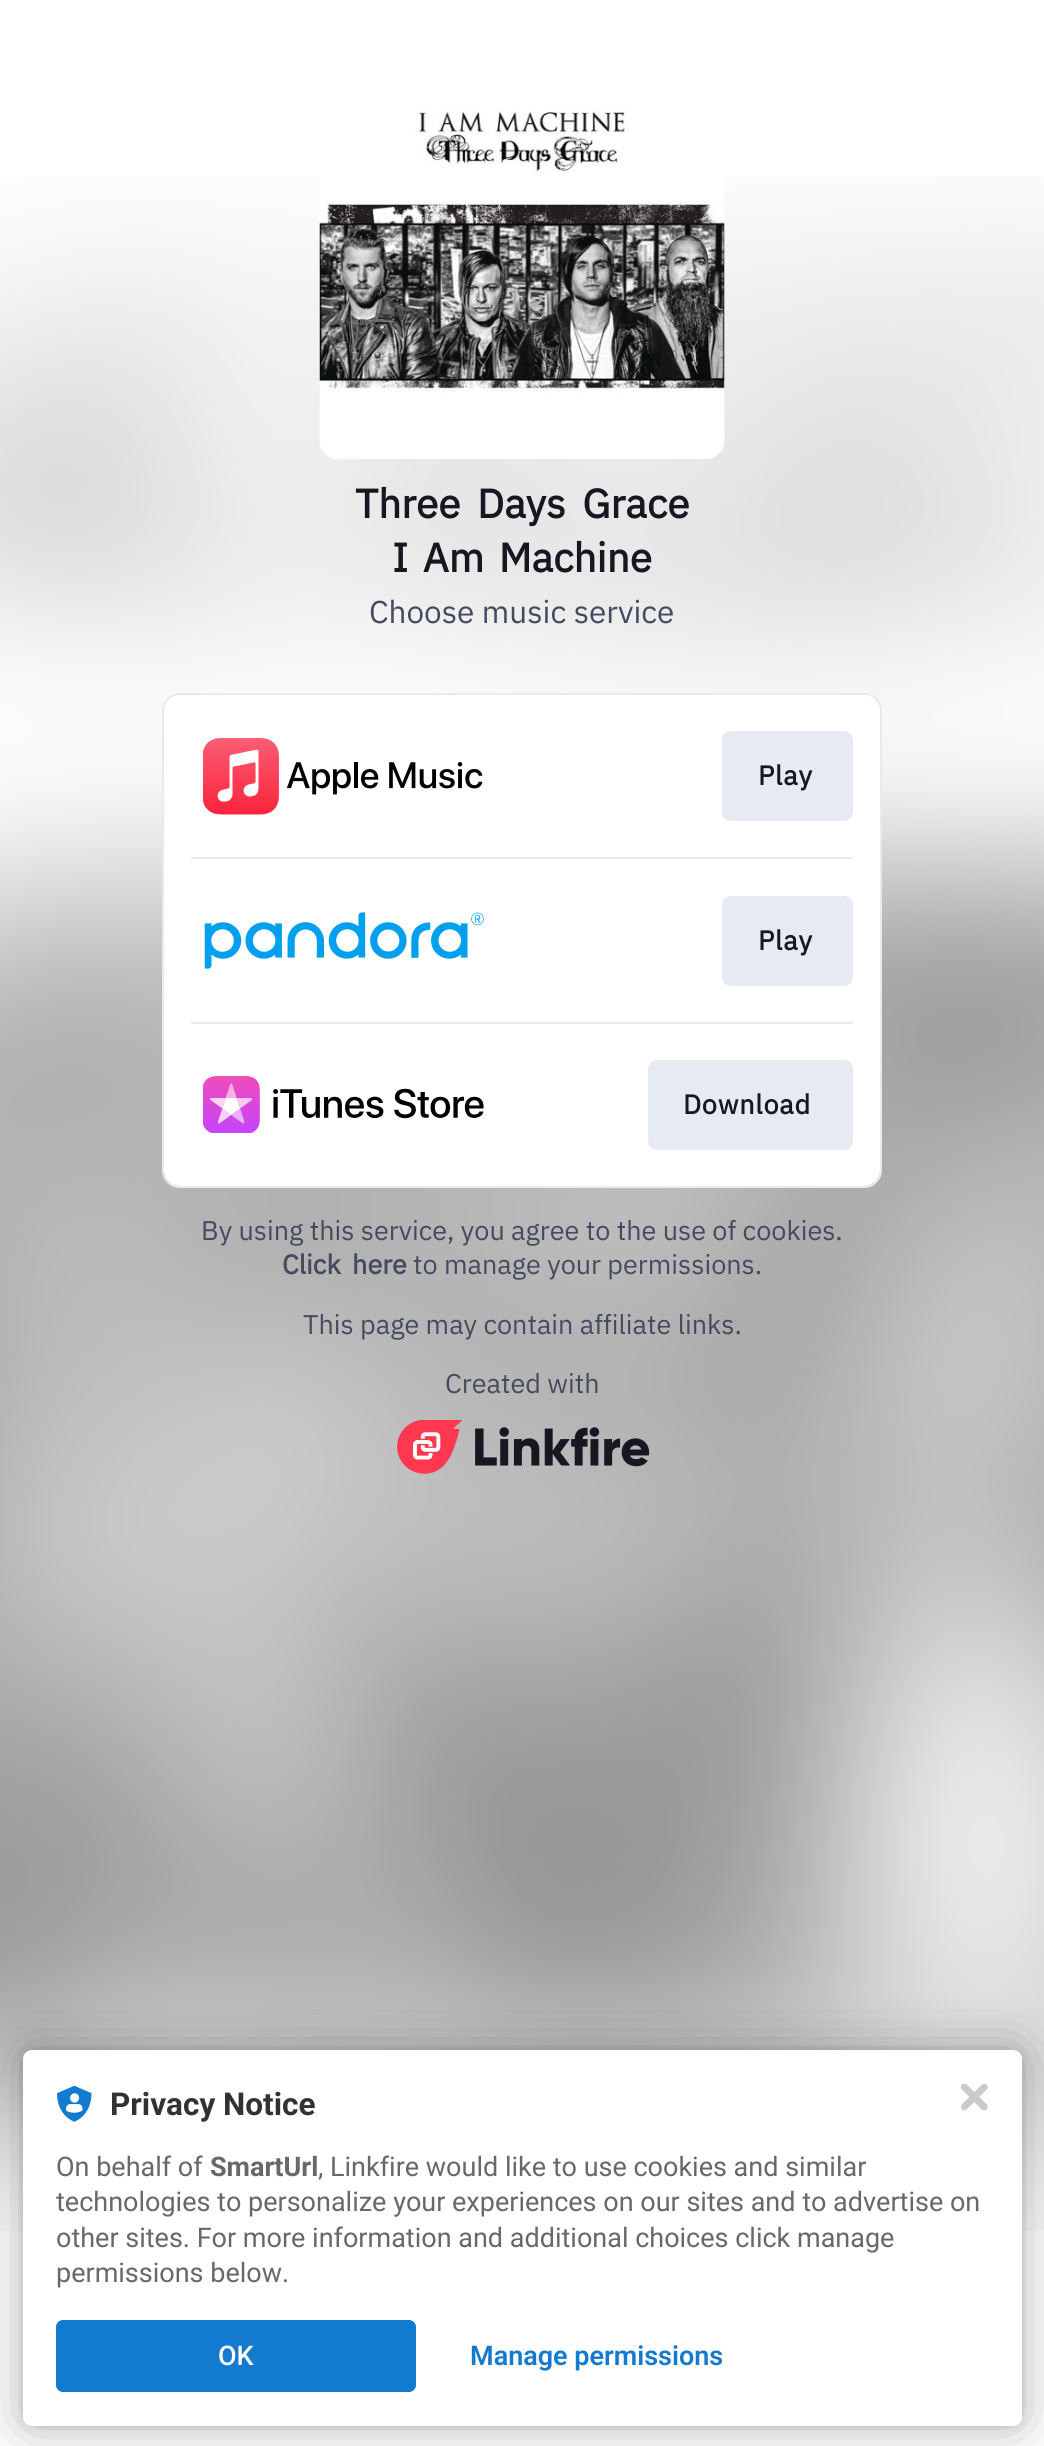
#include <cairo.h>
#include <math.h>
#include <stddef.h>

static cairo_t *c;
static void C(unsigned color){cairo_set_source_rgb(c, (color >> 16) / 255.0, (color >> 8 & 255) / 255.0, (color & 255) / 255.0);}
static void F(const char *family, double size, int italic, int bold){cairo_select_font_face(c, family, italic ? CAIRO_FONT_SLANT_ITALIC : CAIRO_FONT_SLANT_NORMAL,bold ? CAIRO_FONT_WEIGHT_BOLD : CAIRO_FONT_WEIGHT_NORMAL);cairo_set_font_size(c, size);}
static void T(double x, double y, const char *s){cairo_move_to(c, x, y);cairo_show_text(c, s);}
static void L(double x, double y, const char *s, double letter, double word){cairo_move_to(c, x, y);while (*s) {char ch[5] = {0};int n = 0;do ch[n++] = *s++; while ((*s & 0xC0) == 0x80);cairo_show_text(c, ch);cairo_rel_move_to(c, letter + word * (*ch == ' '), 0);}}
static void R(double x, double y, double w, double h){cairo_rectangle(c, x, y, w, h);cairo_fill(c);}
static void Q(double x, double y, double w, double h, double r){cairo_new_sub_path(c);cairo_arc(c, x + w - r, y + h - r, r, 0, M_PI / 2);cairo_arc(c, x + r, y + h - r, r, M_PI / 2, M_PI);cairo_arc(c, x + r, y + r, r, M_PI, 1.5 * M_PI);cairo_arc(c, x + w - r, y + r, r, 1.5 * M_PI, 2 * M_PI);cairo_close_path(c);}
static void S(double x, double y, double w, double h, double r, double blur, double alpha){cairo_push_group_with_content(c, CAIRO_CONTENT_ALPHA);cairo_set_operator(c, CAIRO_OPERATOR_SOURCE);for (int i = 15; i >= -15 && fmin(w, h) + blur * i / 3 > 0; i -= 2) {double e = blur * i / 6;cairo_set_source_rgba(c, 0, 0, 0, alpha * erfc((i - 1) / 8.5) / 2);Q(x - e, y - e, w + 2 * e, h + 2 * e, fmax(0, fmin(r + e + blur * .6, fmin(w, h) / 2 + e)));cairo_fill(c);}cairo_pattern_t *soft = cairo_pop_group(c);cairo_mask(c, soft);cairo_pattern_destroy(soft);}
static void I(const char *path, double x, double y, double w, double h){cairo_surface_t *image = cairo_image_surface_create_from_png(path);cairo_save(c);cairo_set_source_surface(c, image, x, y);cairo_rectangle(c, x, y, w, h);cairo_fill(c);cairo_restore(c);cairo_surface_destroy(image);}
int main(void) {
cairo_surface_t *surface = cairo_image_surface_create(CAIRO_FORMAT_RGB24, 1044, 2446);
c = cairo_create(surface);
cairo_font_options_t *options = cairo_font_options_create();
cairo_font_options_set_hint_metrics(options, CAIRO_HINT_METRICS_OFF);
cairo_font_options_set_hint_style(options, CAIRO_HINT_STYLE_NONE);
cairo_set_font_options(c, options);
cairo_set_miter_limit(c, 4);
C(0xffffff);
cairo_paint(c);
I("1.png",0,176,1044,2055);
I("2.png",319,109,406,350);
F("IBM Plex Sans",40.5,0,1);
C(0x181721);
L(355,518,"Three Days Grace",0,7);
L(392,572,"I Am Machine",0,5);
F("IBM Plex Sans",31.5,0,0);
C(0x454b5f);
T(369,623,"Choose music service");
Q(163,694,718,493,17);
C(0xe6eaf2);
cairo_stroke(c);
C(0xffffff);
Q(164,695,716,491,16);
cairo_fill(c);
I("3.png",203,738,280,77);
C(0xe6eaf2);
Q(722,731,131,90,9);
cairo_fill(c);
F("IBM Plex Sans",27,0,1);
C(0x181721);
L(758,785,"Play",.75,0);
C(0xe6eaf2);
R(191,857,662,2);
I("4.png",204,912,280,57);
Q(722,896,131,90,9);
cairo_fill(c);
C(0x181721);
L(758,950,"Play",.75,0);
C(0xe6eaf2);
R(191,1022,662,2);
I("5.png",203,1076,281,57);
Q(648,1060,205,90,9);
cairo_fill(c);
C(0x181721);
L(683,1114,"Download",.75,0);
F("IBM Plex Sans",27,0,0);
C(0x454b5f);
T(201,1240,"By using this service, you agree to the use of cookies.");
F("IBM Plex Sans",27,0,1);
L(282,1274,"Click here",0,5);
F("IBM Plex Sans",27,0,0);
T(413,1274,"to manage your permissions.");
T(303,1334,"This page may contain affiliate links.");
T(445,1393,"Created with");
I("6.png",397,1420,253,54);
C(0x000000);
S(23,2050,999,376,9,4.5,.12);
S(23,2050,999,376,9,27,.3);
C(0xffffff);
Q(23,2050,999,376,9);
cairo_fill(c);
I("7.png",961,2084,27,27);
I("8.png",57,2086,35,36);
F("Roboto",31.5,0,1);
C(0x323232);
T(110,2115,"Privacy Notice");
F("Roboto",27,0,0);
C(0x686868);
T(56,2176,"On behalf of");
F("Roboto",27,0,1);
T(210,2176,"SmartUrl");
F("Roboto",27,0,0);
T(318,2176,", Linkfire would like to use cookies and similar");
T(56,2211,"technologies to personalize your experiences on our sites and to advertise on");
T(56,2247,"other sites. For more information and additional choices click manage");
T(56,2282,"permissions below.");
C(0x137bcf);
Q(56,2320,360,72,7);
cairo_fill(c);
F("Roboto Medium",27,0,0);
C(0xffffff);
T(218,2365,"OK");
F("Roboto SemiBold",27,0,0);
C(0x137bcf);
T(470,2365,"Manage permissions");
cairo_surface_write_to_png(surface, "o.png");
cairo_font_options_destroy(options);
cairo_destroy(c);
cairo_surface_destroy(surface);
return 0;
}
